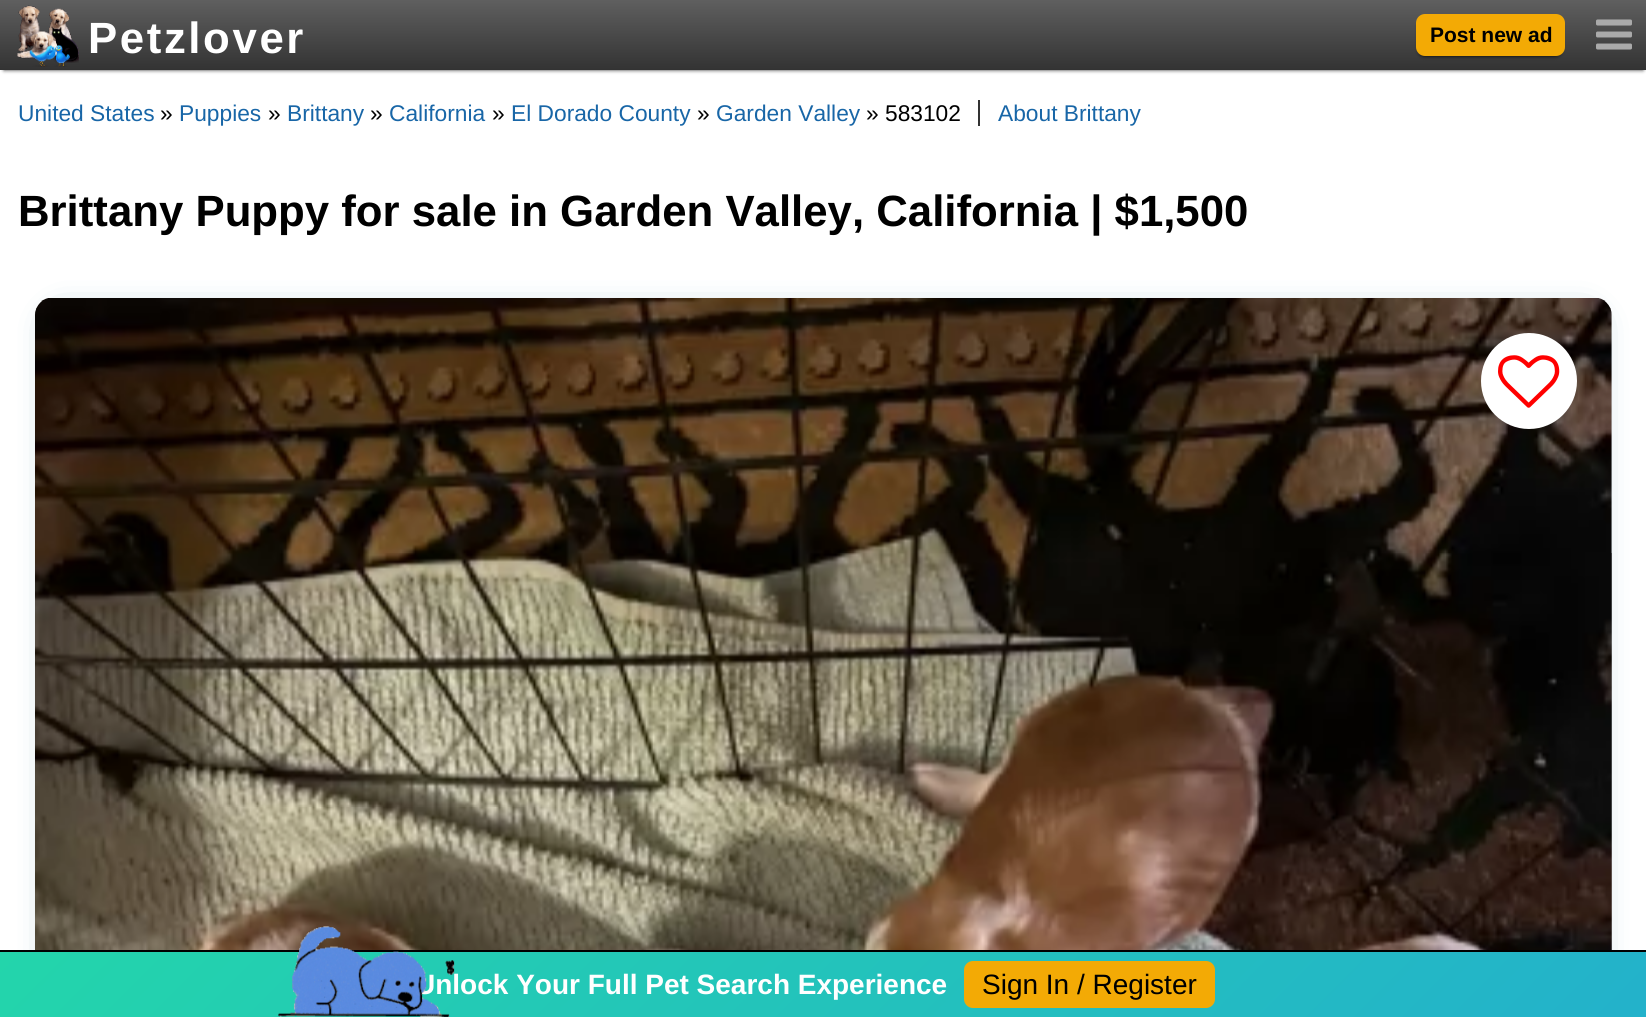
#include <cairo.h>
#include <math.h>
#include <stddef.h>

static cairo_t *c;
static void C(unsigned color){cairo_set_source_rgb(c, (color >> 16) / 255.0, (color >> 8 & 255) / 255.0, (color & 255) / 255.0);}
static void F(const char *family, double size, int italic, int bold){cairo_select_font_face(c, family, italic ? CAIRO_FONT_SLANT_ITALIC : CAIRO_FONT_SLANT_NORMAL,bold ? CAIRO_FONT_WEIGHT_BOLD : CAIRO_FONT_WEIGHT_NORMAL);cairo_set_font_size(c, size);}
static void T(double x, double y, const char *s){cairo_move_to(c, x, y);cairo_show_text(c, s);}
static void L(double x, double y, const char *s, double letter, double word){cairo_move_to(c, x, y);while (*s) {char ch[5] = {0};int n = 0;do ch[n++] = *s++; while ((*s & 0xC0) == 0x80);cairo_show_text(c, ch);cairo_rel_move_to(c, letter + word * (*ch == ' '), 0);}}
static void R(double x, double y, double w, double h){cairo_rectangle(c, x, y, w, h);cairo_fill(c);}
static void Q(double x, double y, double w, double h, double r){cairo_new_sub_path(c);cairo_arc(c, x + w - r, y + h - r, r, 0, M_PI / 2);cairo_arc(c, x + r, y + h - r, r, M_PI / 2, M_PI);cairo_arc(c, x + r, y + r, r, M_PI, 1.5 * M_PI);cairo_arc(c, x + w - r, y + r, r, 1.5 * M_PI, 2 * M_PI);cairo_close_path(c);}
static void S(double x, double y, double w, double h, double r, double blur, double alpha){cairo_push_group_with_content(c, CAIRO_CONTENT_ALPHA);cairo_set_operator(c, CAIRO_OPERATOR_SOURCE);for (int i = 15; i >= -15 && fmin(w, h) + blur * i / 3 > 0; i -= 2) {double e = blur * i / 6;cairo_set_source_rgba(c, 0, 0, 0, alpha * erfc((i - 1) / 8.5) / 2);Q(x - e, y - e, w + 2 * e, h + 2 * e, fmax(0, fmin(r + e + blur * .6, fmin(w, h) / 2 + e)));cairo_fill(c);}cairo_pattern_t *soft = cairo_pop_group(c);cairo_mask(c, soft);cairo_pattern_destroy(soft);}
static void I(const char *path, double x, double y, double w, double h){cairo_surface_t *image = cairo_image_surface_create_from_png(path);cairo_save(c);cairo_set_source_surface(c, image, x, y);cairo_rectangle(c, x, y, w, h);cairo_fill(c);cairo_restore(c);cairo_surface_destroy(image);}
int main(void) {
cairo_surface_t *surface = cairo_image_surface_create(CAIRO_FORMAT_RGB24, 1646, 1017);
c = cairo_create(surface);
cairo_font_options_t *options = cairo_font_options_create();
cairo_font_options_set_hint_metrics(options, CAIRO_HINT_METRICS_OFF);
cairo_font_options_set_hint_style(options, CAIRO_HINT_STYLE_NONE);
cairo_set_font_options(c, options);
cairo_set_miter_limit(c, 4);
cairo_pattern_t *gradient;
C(0xffffff);
cairo_paint(c);
C(0x000000);
S(4,7,1639,63,0,2,.82);
gradient = cairo_pattern_create_linear(823,0,823,70);
cairo_pattern_add_color_stop_rgba(gradient,0,0.373,0.373,0.373,1);
cairo_pattern_add_color_stop_rgba(gradient,1,0.2,0.2,0.2,1);
cairo_set_source(c,gradient);
cairo_pattern_destroy(gradient);
R(0,0,1646,70);
I("1.png",17,5,62,62);
F("Liberation Sans",43.75,0,1);
C(0xffffff);
L(88,53,"Petzlover",2.6,0);
C(0x000000);
S(1419,21,142,35,5,2,1);
C(0xf3aa05);
Q(1416,14,149,42,9);
cairo_fill(c);
F("Liberation Sans",21,0,1);
C(0x000000);
T(1430,42,"Post new ad");
I("2.png",1596,19,36,31);
F("Liberation Sans",22.75,0,0);
C(0x1866a7);
T(18,121,"United States");
C(0x000000);
T(160,121,"»");
C(0x1866a7);
T(179,121,"Puppies");
C(0x000000);
T(268,121,"»");
C(0x1866a7);
T(287,121,"Brittany");
C(0x000000);
T(370,121,"»");
C(0x1866a7);
T(389,121,"California");
C(0x000000);
T(492,121,"»");
C(0x1866a7);
T(511,121,"El Dorado County");
C(0x000000);
T(697,121,"»");
C(0x1866a7);
T(716,121,"Garden Valley");
C(0x000000);
T(866,121,"» 583102");
C(0x1866a7);
T(998,121,"About Brittany");
C(0x333333);
R(978,100,2,26);
F("Liberation Sans",43.75,0,1);
C(0x000000);
T(18,226,"Brittany Puppy for sale in Garden Valley, California | $1,500");
C(0x0f6e85);
S(61,324,1525,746,0,17.5,1);
I("3.png",35,298,1577,652);
C(0xffffff);
cairo_arc(c,1529,381,48,0,2 * M_PI);
cairo_fill(c);
I("4.png",1498,355,62,53);
gradient = cairo_pattern_create_linear(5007,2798,1580,-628);
cairo_pattern_add_color_stop_rgba(gradient,0,0.933,0.467,0.322,1);
cairo_pattern_add_color_stop_rgba(gradient,.33,0.906,0.235,0.494,1);
cairo_pattern_add_color_stop_rgba(gradient,.67,0.137,0.651,0.835,1);
cairo_pattern_add_color_stop_rgba(gradient,1,0.137,0.835,0.671,1);
cairo_set_source(c,gradient);
cairo_pattern_destroy(gradient);
R(0,952,1646,65);
C(0x000000);
R(0,950,1646,2);
F("Liberation Sans",28,0,1);
C(0xffffff);
T(415,994,"Unlock Your Full Pet Search Experience");
I("5.png",278,926,177,91);
C(0xf3aa05);
Q(964,961,251,47,9);
cairo_fill(c);
F("Liberation Sans",28,0,0);
C(0x000000);
T(982,994,"Sign In / Register");
cairo_surface_write_to_png(surface, "o.png");
cairo_font_options_destroy(options);
cairo_destroy(c);
cairo_surface_destroy(surface);
return 0;
}
